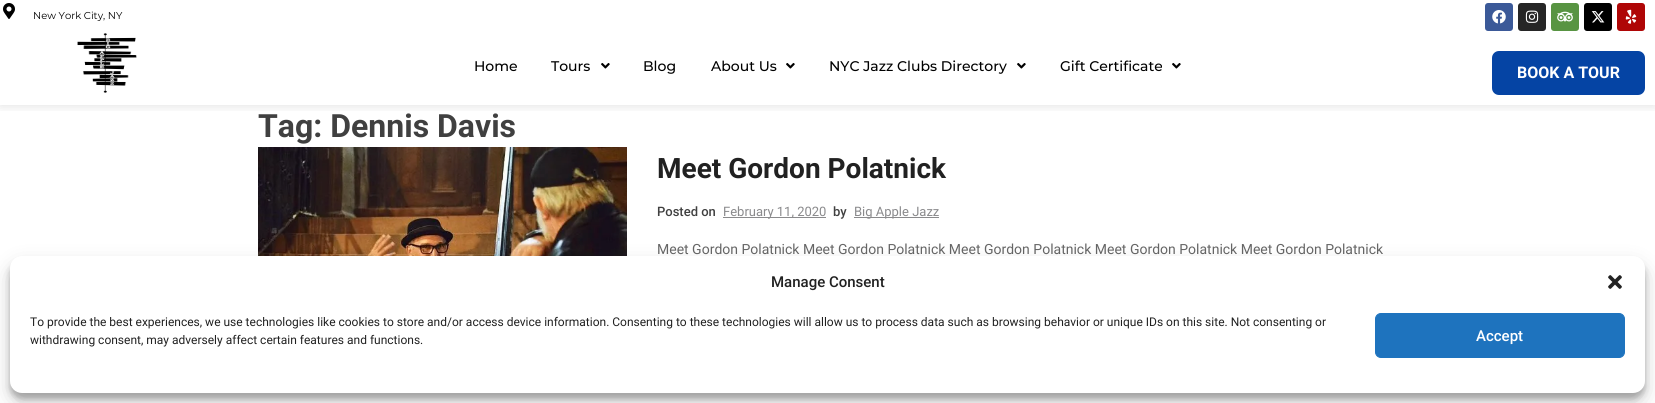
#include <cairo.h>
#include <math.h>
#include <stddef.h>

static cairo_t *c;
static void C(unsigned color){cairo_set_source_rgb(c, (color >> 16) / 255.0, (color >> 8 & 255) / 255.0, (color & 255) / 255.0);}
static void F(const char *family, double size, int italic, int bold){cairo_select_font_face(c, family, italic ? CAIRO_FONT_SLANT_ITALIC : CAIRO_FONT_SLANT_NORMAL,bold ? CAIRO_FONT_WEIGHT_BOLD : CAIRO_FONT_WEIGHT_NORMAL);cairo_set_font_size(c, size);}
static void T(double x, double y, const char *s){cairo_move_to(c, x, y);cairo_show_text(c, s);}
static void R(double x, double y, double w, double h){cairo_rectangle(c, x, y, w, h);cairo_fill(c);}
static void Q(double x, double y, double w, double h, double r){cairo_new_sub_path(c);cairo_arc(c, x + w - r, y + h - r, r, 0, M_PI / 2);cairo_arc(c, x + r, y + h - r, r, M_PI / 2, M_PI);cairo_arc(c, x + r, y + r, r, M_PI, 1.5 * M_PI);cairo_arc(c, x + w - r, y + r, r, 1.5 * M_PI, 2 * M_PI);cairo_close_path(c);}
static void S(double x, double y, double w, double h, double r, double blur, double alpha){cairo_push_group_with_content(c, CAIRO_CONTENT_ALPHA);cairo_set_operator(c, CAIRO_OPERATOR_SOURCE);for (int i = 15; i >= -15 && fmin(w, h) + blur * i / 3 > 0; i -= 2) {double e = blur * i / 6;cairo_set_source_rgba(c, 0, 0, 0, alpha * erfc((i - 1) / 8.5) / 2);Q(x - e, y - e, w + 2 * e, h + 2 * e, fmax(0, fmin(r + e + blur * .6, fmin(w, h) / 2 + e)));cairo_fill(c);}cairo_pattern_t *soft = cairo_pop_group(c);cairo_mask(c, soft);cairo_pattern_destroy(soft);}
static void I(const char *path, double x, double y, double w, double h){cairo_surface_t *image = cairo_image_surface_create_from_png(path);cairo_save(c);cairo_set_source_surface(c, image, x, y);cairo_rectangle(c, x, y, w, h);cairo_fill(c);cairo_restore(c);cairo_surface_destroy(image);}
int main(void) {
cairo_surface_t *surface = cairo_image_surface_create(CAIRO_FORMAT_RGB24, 1655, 403);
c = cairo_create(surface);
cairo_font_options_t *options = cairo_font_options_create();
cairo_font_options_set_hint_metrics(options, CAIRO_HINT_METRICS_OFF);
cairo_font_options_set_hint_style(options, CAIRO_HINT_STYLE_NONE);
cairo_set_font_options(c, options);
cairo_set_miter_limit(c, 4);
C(0xffffff);
cairo_paint(c);
cairo_save(c);
cairo_rectangle(c,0,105,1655,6);
cairo_clip(c);
C(0x000000);
S(0,2,1655,105,0,5,.1);
cairo_restore(c);
I("1.png",3,3,12,16);
F("Montserrat",10,0,0);
C(0x000000);
T(33,19,"New York City, NY");
I("2.png",77,33,60,60);
F("Montserrat Medium",14,0,0);
T(474,71,"Home");
T(551,71,"Tours");
I("3.png",601,63,9,6);
T(643,71,"Blog");
T(711,71,"About Us");
I("3.png",786,63,9,6);
T(829,71,"NYC Jazz Clubs Directory");
I("3.png",1017,63,9,6);
T(1060,71,"Gift Certificate");
I("3.png",1172,63,9,6);
C(0x3b5998);
Q(1485,3,28,28,3);
cairo_fill(c);
I("4.png",1492,10,14,14);
C(0x262626);
Q(1518,3,28,28,3);
cairo_fill(c);
I("5.png",1525,10,14,13);
C(0x589442);
Q(1551,3,28,28,3);
cairo_fill(c);
I("6.png",1557,11,16,11);
C(0x000000);
Q(1584,3,28,28,3);
cairo_fill(c);
I("7.png",1591,11,14,12);
C(0xaf0606);
Q(1617,3,28,28,3);
cairo_fill(c);
I("8.png",1625,9,12,15);
C(0x0544a4);
Q(1492,51,153,44,7);
cairo_fill(c);
F("Roboto",16,0,1);
C(0xffffff);
T(1517,78,"BOOK A TOUR");
F("Roboto",32,0,1);
C(0x404040);
T(258,137,"Tag: Dennis Davis");
I("9.png",258,147,369,109);
F("Roboto",28,0,1);
C(0x212121);
T(657,178,"Meet Gordon Polatnick");
F("Roboto Medium",13,0,0);
C(0x404040);
T(657,216,"Posted on");
C(0x8a8a8c);
R(723,217,103,1);
F("Roboto",13,0,0);
T(723,216,"February 11, 2020");
F("Roboto Medium",13,0,0);
C(0x404040);
T(833,216,"by");
C(0x8a8a8c);
R(854,217,85,1);
F("Roboto",13,0,0);
T(854,216,"Big Apple Jazz");
F("Roboto",14,0,0);
C(0x666666);
T(657,254,"Meet Gordon Polatnick Meet Gordon Polatnick Meet Gordon Polatnick Meet Gordon Polatnick Meet Gordon Polatnick");
C(0x000000);
S(10,262,1635,137,12,3,.23);
S(10,266,1635,137,12,10,.19);
C(0xffffff);
Q(10,256,1635,137,12);
cairo_fill(c);
F("Roboto Medium",15,0,0);
C(0x212121);
T(771,287,"Manage Consent");
I("10.png",1608,275,14,14);
F("Roboto",12,0,0);
T(30,326,"To provide the best experiences, we use technologies like cookies to store and/or access device information. Consenting to these technologies will allow us to process data such as browsing behavior or unique IDs on this site. Not consenting or");
T(30,344,"withdrawing consent, may adversely affect certain features and functions.");
C(0x1e73be);
Q(1375.5,313.5,249,44,5.5);
cairo_fill_preserve(c);
cairo_set_line_width(c,1);
cairo_stroke(c);
F("Roboto Medium",15,0,0);
C(0xffffff);
T(1476,341,"Accept");
cairo_surface_write_to_png(surface, "o.png");
cairo_font_options_destroy(options);
cairo_destroy(c);
cairo_surface_destroy(surface);
return 0;
}
